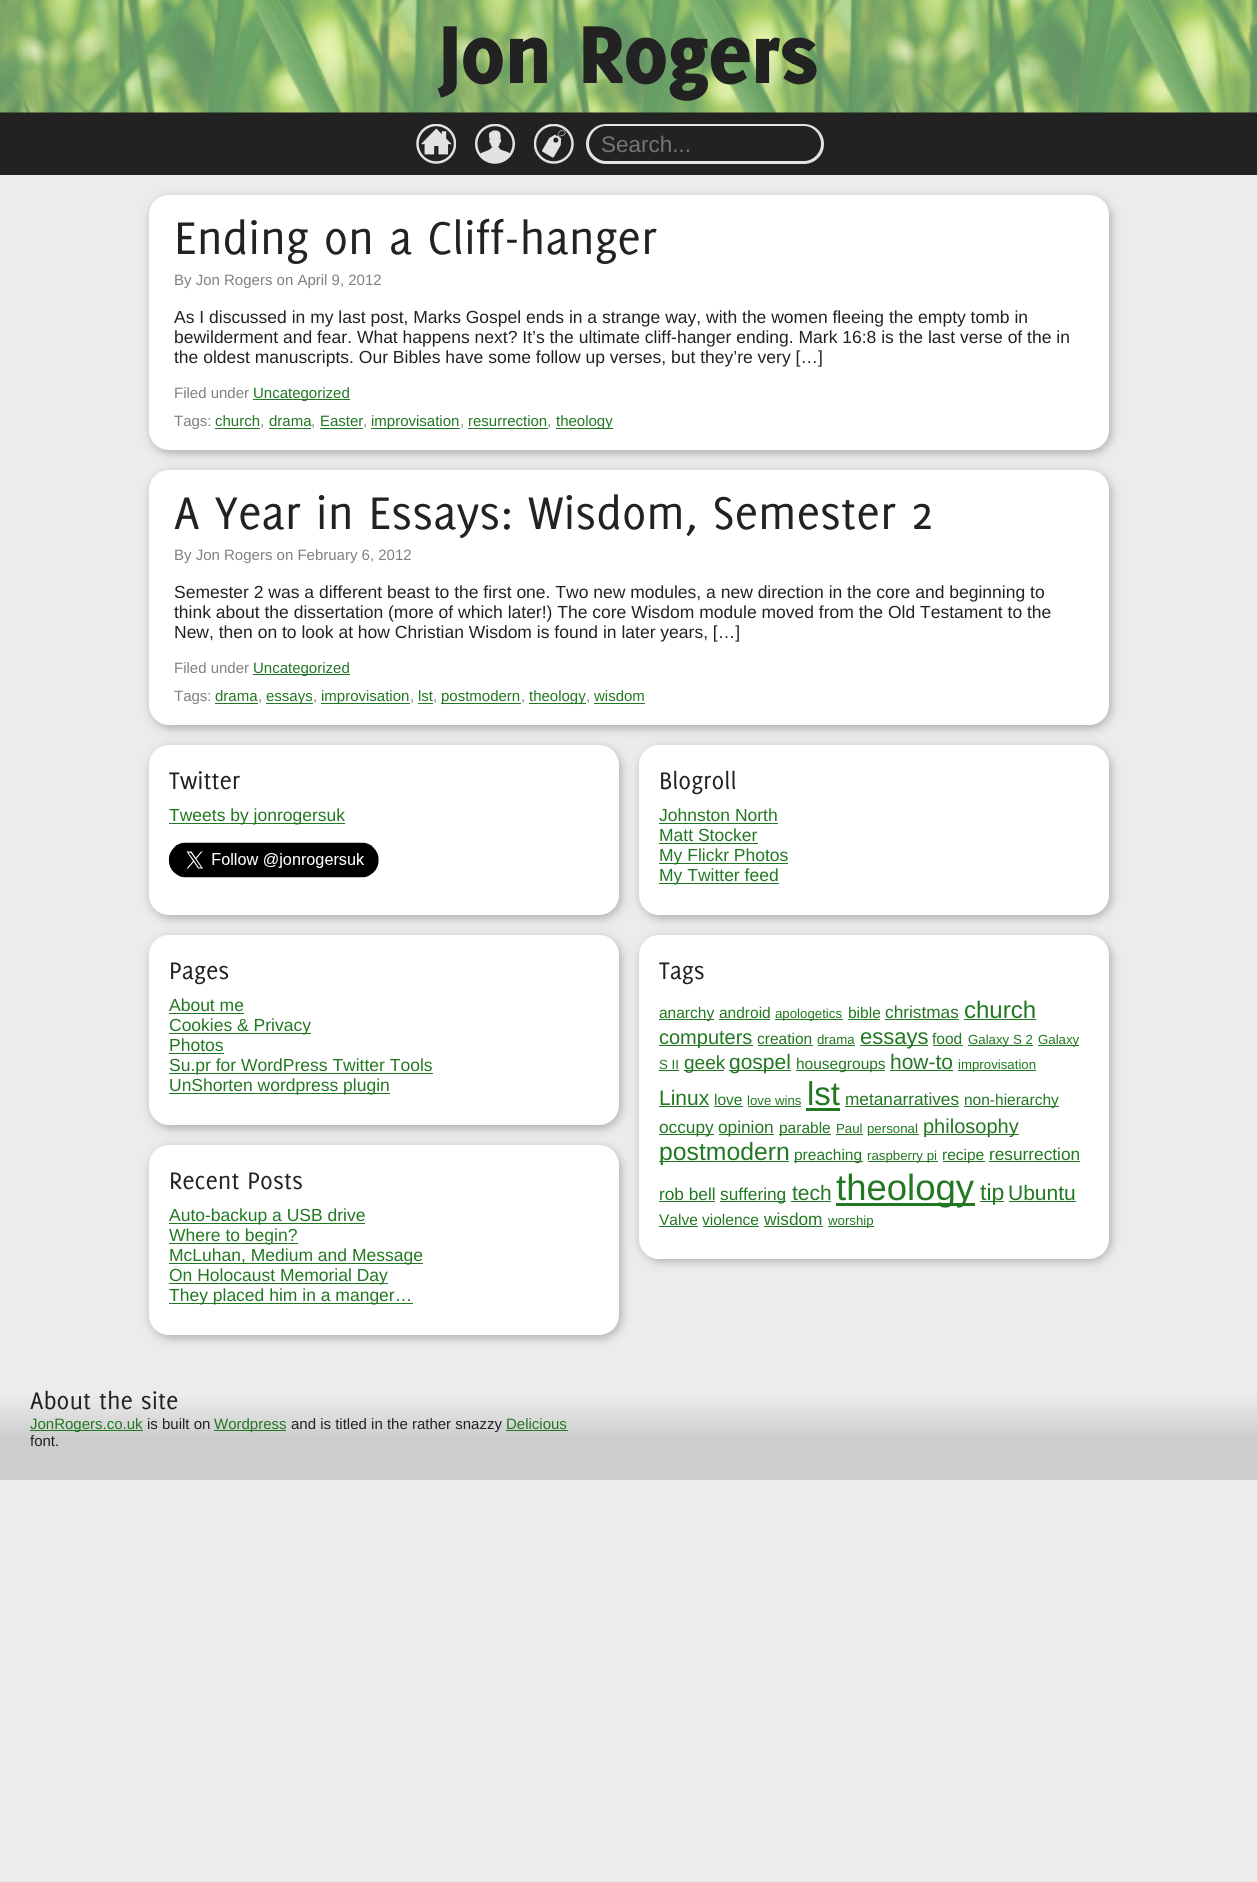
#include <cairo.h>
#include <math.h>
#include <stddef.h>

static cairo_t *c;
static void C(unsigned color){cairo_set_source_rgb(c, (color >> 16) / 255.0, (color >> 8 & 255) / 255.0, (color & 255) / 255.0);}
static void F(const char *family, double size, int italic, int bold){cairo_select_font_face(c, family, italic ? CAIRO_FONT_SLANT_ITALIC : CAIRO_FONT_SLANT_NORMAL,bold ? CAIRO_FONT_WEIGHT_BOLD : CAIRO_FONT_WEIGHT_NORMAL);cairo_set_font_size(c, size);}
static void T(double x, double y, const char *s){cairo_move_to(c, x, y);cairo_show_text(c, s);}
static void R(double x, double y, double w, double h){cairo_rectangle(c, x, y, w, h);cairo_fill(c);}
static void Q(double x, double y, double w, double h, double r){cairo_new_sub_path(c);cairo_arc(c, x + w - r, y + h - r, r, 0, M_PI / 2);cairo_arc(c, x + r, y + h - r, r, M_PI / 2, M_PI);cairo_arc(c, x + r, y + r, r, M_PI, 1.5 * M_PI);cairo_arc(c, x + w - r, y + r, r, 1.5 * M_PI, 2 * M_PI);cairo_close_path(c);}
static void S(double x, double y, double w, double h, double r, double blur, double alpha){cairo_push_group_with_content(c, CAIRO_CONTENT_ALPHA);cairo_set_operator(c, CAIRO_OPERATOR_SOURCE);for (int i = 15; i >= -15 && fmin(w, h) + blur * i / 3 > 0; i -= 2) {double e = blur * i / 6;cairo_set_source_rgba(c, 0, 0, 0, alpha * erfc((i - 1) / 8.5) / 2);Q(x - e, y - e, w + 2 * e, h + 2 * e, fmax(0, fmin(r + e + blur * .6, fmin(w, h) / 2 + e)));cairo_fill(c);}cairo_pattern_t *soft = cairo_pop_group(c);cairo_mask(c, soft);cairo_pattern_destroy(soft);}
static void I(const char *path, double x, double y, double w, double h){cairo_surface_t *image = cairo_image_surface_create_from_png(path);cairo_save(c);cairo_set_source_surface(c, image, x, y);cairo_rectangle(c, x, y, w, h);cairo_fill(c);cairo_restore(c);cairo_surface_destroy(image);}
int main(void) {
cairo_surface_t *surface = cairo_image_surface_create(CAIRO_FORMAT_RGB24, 1257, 1882);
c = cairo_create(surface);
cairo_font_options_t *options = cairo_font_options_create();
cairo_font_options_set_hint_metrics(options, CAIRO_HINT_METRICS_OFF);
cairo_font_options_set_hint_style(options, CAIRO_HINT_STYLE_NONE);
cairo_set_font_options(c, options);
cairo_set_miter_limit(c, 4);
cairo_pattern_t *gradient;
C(0xececec);
cairo_paint(c);
C(0x222222);
R(0,112,1257,63);
I("1.png",0,0,1257,113);
F("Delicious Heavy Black",90,0,0);
T(439,83,"Jon Rogers");
I("2.png",416,124,40,40);
I("3.png",475,124,40,40);
I("4.png",534,124,40,40);
C(0xe2e2e2);
cairo_new_path(c);
cairo_move_to(c,606,124);
cairo_curve_to(c,595,124,586,133,586,144);
cairo_curve_to(c,586,155,595,164,606,164);
cairo_line_to(c,804,164);
cairo_curve_to(c,815,164,824,155,824,144);
cairo_curve_to(c,824,133,815,124,804,124);
cairo_close_path(c);
cairo_move_to(c,606,126);
cairo_line_to(c,804,126);
cairo_curve_to(c,813,126,821,134,821,144);
cairo_curve_to(c,821,153,813,161,804,161);
cairo_line_to(c,606,161);
cairo_curve_to(c,597,161,589,153,589,144);
cairo_curve_to(c,589,134,597,126,606,126);
cairo_close_path(c);
cairo_fill(c);
F("Liberation Sans",22.5,0,0);
C(0x757575);
T(601,152,"Search...");
C(0xababab);
S(151,198,960,255,20,5,1);
C(0xffffff);
Q(149,195,960,255,20);
cairo_fill(c);
F("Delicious",50,0,0);
C(0x222222);
T(174,254,"Ending on a Cliff-hanger");
F("Liberation Sans",15,0,0);
C(0x808080);
T(174,285,"By Jon Rogers on April 9, 2012");
F("Liberation Sans",17.5,0,0);
C(0x222222);
T(174,323,"As I discussed in my last post, Marks Gospel ends in a strange way, with the women fleeing the empty tomb in");
T(174,343,"bewilderment and fear. What happens next? It’s the ultimate cliff-hanger ending. Mark 16:8 is the last verse of the in");
T(174,363,"the oldest manuscripts. Our Bibles have some follow up verses, but they’re very […]");
F("Liberation Sans",15,0,0);
C(0x808080);
T(174,398,"Filed under");
C(0x227722);
R(253,399,97,1);
T(253,398,"Uncategorized");
C(0x808080);
T(174,426,"Tags:");
C(0x227722);
T(215,426,"church");
R(215,428,45,1);
C(0x808080);
T(260,426,",");
C(0x227722);
T(269,426,"drama");
R(269,428,42,1);
C(0x808080);
T(311,426,",");
C(0x227722);
T(320,426,"Easter");
R(320,428,43,1);
C(0x808080);
T(363,426,",");
C(0x227722);
R(371,428,89,1);
T(371,426,"improvisation");
C(0x808080);
T(460,426,",");
C(0x227722);
T(468,426,"resurrection");
R(468,428,80,1);
C(0x808080);
T(547,426,",");
C(0x227722);
R(556,428,57,1);
T(556,426,"theology");
C(0xababab);
S(151,473,960,255,20,5,1);
C(0xffffff);
Q(149,470,960,255,20);
cairo_fill(c);
F("Delicious",50,0,0);
C(0x222222);
T(174,529,"A Year in Essays: Wisdom, Semester 2");
F("Liberation Sans",15,0,0);
C(0x808080);
T(174,560,"By Jon Rogers on February 6, 2012");
F("Liberation Sans",17.5,0,0);
C(0x222222);
T(174,598,"Semester 2 was a different beast to the first one. Two new modules, a new direction in the core and beginning to");
T(174,618,"think about the dissertation (more of which later!) The core Wisdom module moved from the Old Testament to the");
T(174,638,"New, then on to look at how Christian Wisdom is found in later years, […]");
F("Liberation Sans",15,0,0);
C(0x808080);
T(174,673,"Filed under");
C(0x227722);
R(253,674,97,1);
T(253,673,"Uncategorized");
C(0x808080);
T(174,701,"Tags:");
C(0x227722);
T(215,701,"drama");
R(215,703,43,1);
C(0x808080);
T(258,701,",");
C(0x227722);
R(266,703,47,1);
T(266,701,"essays");
C(0x808080);
T(313,701,",");
C(0x227722);
R(321,703,89,1);
T(321,701,"improvisation");
C(0x808080);
T(410,701,",");
C(0x227722);
T(418,701,"lst");
R(418,703,15,1);
C(0x808080);
T(433,701,",");
C(0x227722);
R(441,703,80,1);
T(441,701,"postmodern");
C(0x808080);
T(521,701,",");
C(0x227722);
R(529,703,57,1);
T(529,701,"theology");
C(0x808080);
T(586,701,",");
C(0x227722);
T(594,701,"wisdom");
R(594,703,51,1);
C(0xababab);
S(151,748,470,170,20,5,1);
C(0xffffff);
Q(149,745,470,170,20);
cairo_fill(c);
F("Delicious",26.25,0,0);
C(0x222222);
T(169,789,"Twitter");
C(0x227722);
R(169,823,176,1);
F("Liberation Sans",17.5,0,0);
T(169,821,"Tweets by jonrogersuk");
I("5.png",168,842,211,36);
C(0xababab);
S(151,938,470,190,20,5,1);
C(0xffffff);
Q(149,935,470,190,20);
cairo_fill(c);
F("Delicious",26.25,0,0);
C(0x222222);
T(169,979,"Pages");
F("Liberation Sans",17.5,0,0);
C(0x227722);
T(169,1011,"About me");
R(169,1013,75,1);
R(169,1033,142,1);
T(169,1031,"Cookies & Privacy");
T(169,1051,"Photos");
R(169,1053,55,1);
R(169,1073,264,1);
T(169,1071,"Su.pr for WordPress Twitter Tools");
R(169,1093,221,1);
T(169,1091,"UnShorten wordpress plugin");
C(0xababab);
S(151,1148,470,190,20,5,1);
C(0xffffff);
Q(149,1145,470,190,20);
cairo_fill(c);
F("Delicious",26.25,0,0);
C(0x222222);
T(169,1189,"Recent Posts");
C(0x227722);
R(169,1223,196,1);
F("Liberation Sans",17.5,0,0);
T(169,1221,"Auto-backup a USB drive");
R(169,1243,129,1);
T(169,1241,"Where to begin?");
R(169,1263,254,1);
T(169,1261,"McLuhan, Medium and Message");
R(169,1283,219,1);
T(169,1281,"On Holocaust Memorial Day");
R(169,1303,244,1);
T(169,1301,"They placed him in a manger…");
C(0xababab);
S(641,748,470,170,20,5,1);
C(0xffffff);
Q(639,745,470,170,20);
cairo_fill(c);
F("Delicious",26.25,0,0);
C(0x222222);
T(659,789,"Blogroll");
F("Liberation Sans",17.5,0,0);
C(0x227722);
T(659,821,"Johnston North");
R(659,823,119,1);
T(659,841,"Matt Stocker");
R(659,843,99,1);
R(659,863,129,1);
T(659,861,"My Flickr Photos");
R(659,883,120,1);
T(659,881,"My Twitter feed");
C(0xababab);
S(641,938,470,323,20,5,1);
C(0xffffff);
Q(639,935,470,324,20);
cairo_fill(c);
F("Delicious",26.25,0,0);
C(0x222222);
T(659,979,"Tags");
C(0x227722);
R(659,1019,55,1);
F("Liberation Sans",15.5,0,0);
T(659,1018,"anarchy");
T(719,1018,"android");
R(719,1019,51,1);
R(775,1019,68,1);
F("Liberation Sans",13.25,0,0);
T(775,1018,"apologetics");
F("Liberation Sans",15.5,0,0);
T(848,1018,"bible");
R(848,1019,32,1);
F("Liberation Sans",17.25,0,0);
T(885,1018,"christmas");
R(885,1019,74,1);
F("Liberation Sans",24,0,0);
T(964,1018,"church");
R(964,1019,72,1);
R(659,1045,94,1);
F("Liberation Sans",20,0,0);
T(659,1044,"computers");
F("Liberation Sans",15.5,0,0);
T(757,1044,"creation");
R(758,1045,55,1);
F("Liberation Sans",13.25,0,0);
T(817,1044,"drama");
R(818,1045,37,1);
R(860,1045,68,1);
F("Liberation Sans",22,0,0);
T(860,1044,"essays");
F("Liberation Sans",15.5,0,0);
T(932,1044,"food");
R(933,1045,30,1);
R(968,1045,65,1);
F("Liberation Sans",13.25,0,0);
T(968,1044,"Galaxy S 2");
R(1038,1045,41,1);
T(1038,1044,"Galaxy");
T(659,1069,"S II");
R(659,1070,20,1);
R(684,1070,40,1);
F("Liberation Sans",19,0,0);
T(684,1069,"geek");
R(729,1070,62,1);
F("Liberation Sans",21,0,0);
T(729,1069,"gospel");
R(796,1070,89,1);
F("Liberation Sans",15.5,0,0);
T(796,1069,"housegroups");
F("Liberation Sans",21,0,0);
T(890,1069,"how-to");
R(890,1070,63,1);
R(958,1070,78,1);
F("Liberation Sans",13.25,0,0);
T(958,1069,"improvisation");
F("Liberation Sans",21,0,0);
T(659,1105,"Linux");
R(659,1106,50,1);
F("Liberation Sans",15.5,0,0);
T(714,1105,"love");
R(714,1106,29,1);
F("Liberation Sans",13.25,0,0);
T(747,1105,"love wins");
R(748,1106,53,1);
F("Liberation Sans",33,0,0);
T(807,1105,"lst");
R(806,1108,34,3);
F("Liberation Sans",17.25,0,0);
T(845,1105,"metanarratives");
R(845,1106,114,1);
R(964,1106,95,1);
F("Liberation Sans",15.5,0,0);
T(964,1105,"non-hierarchy");
R(659,1134,55,1);
F("Liberation Sans",17.25,0,0);
T(659,1133,"occupy");
R(719,1134,55,1);
T(718,1133,"opinion");
R(779,1134,52,1);
F("Liberation Sans",15.5,0,0);
T(779,1133,"parable");
F("Liberation Sans",13.25,0,0);
T(836,1133,"Paul");
R(836,1134,27,1);
R(868,1134,51,1);
T(867,1133,"personal");
R(924,1134,95,1);
F("Liberation Sans",20,0,0);
T(923,1133,"philosophy");
R(659,1161,130,1);
F("Liberation Sans",24.75,0,0);
T(659,1160,"postmodern");
R(794,1161,69,1);
F("Liberation Sans",15.5,0,0);
T(794,1160,"preaching");
R(868,1161,70,1);
F("Liberation Sans",13.25,0,0);
T(867,1160,"raspberry pi");
R(943,1161,42,1);
F("Liberation Sans",15.5,0,0);
T(942,1160,"recipe");
F("Liberation Sans",17.25,0,0);
T(989,1160,"resurrection");
R(989,1161,91,1);
T(659,1200,"rob bell");
R(659,1201,56,1);
R(720,1201,66,1);
T(720,1200,"suffering");
F("Liberation Sans",21,0,0);
T(792,1200,"tech");
R(791,1201,40,1);
R(836,1203,139,3);
F("Liberation Sans",36.5,0,0);
T(836,1200,"theology");
R(980,1201,24,1);
F("Liberation Sans",23,0,0);
T(980,1200,"tip");
F("Liberation Sans",21,0,0);
T(1008,1200,"Ubuntu");
R(1009,1201,67,1);
F("Liberation Sans",15.5,0,0);
T(659,1225,"Valve");
R(659,1226,39,1);
T(702,1225,"violence");
R(703,1226,56,1);
F("Liberation Sans",17.25,0,0);
T(764,1225,"wisdom");
R(764,1226,59,1);
R(828,1226,46,1);
F("Liberation Sans",13.25,0,0);
T(828,1225,"worship");
gradient = cairo_pattern_create_linear(0,1355,0,1480);
cairo_pattern_add_color_stop_rgba(gradient,.31,0.925,0.925,0.925,1);
cairo_pattern_add_color_stop_rgba(gradient,.66,0.808,0.808,0.808,1);
cairo_set_source(c,gradient);
cairo_pattern_destroy(gradient);
R(0,1397,1257,83);
F("Delicious",26.25,0,0);
C(0x222222);
T(30,1409,"About the site");
C(0x227722);
R(30,1430,113,1);
F("Liberation Sans",15,0,0);
T(30,1429,"JonRogers.co.uk");
C(0x222222);
T(147,1429,"is built on");
C(0x227722);
R(214,1430,72,1);
T(214,1429,"Wordpress");
C(0x222222);
T(291,1429,"and is titled in the rather snazzy");
C(0x227722);
T(506,1429,"Delicious");
R(506,1430,62,1);
C(0x222222);
T(30,1446,"font.");
cairo_surface_write_to_png(surface, "o.png");
cairo_font_options_destroy(options);
cairo_destroy(c);
cairo_surface_destroy(surface);
return 0;
}
